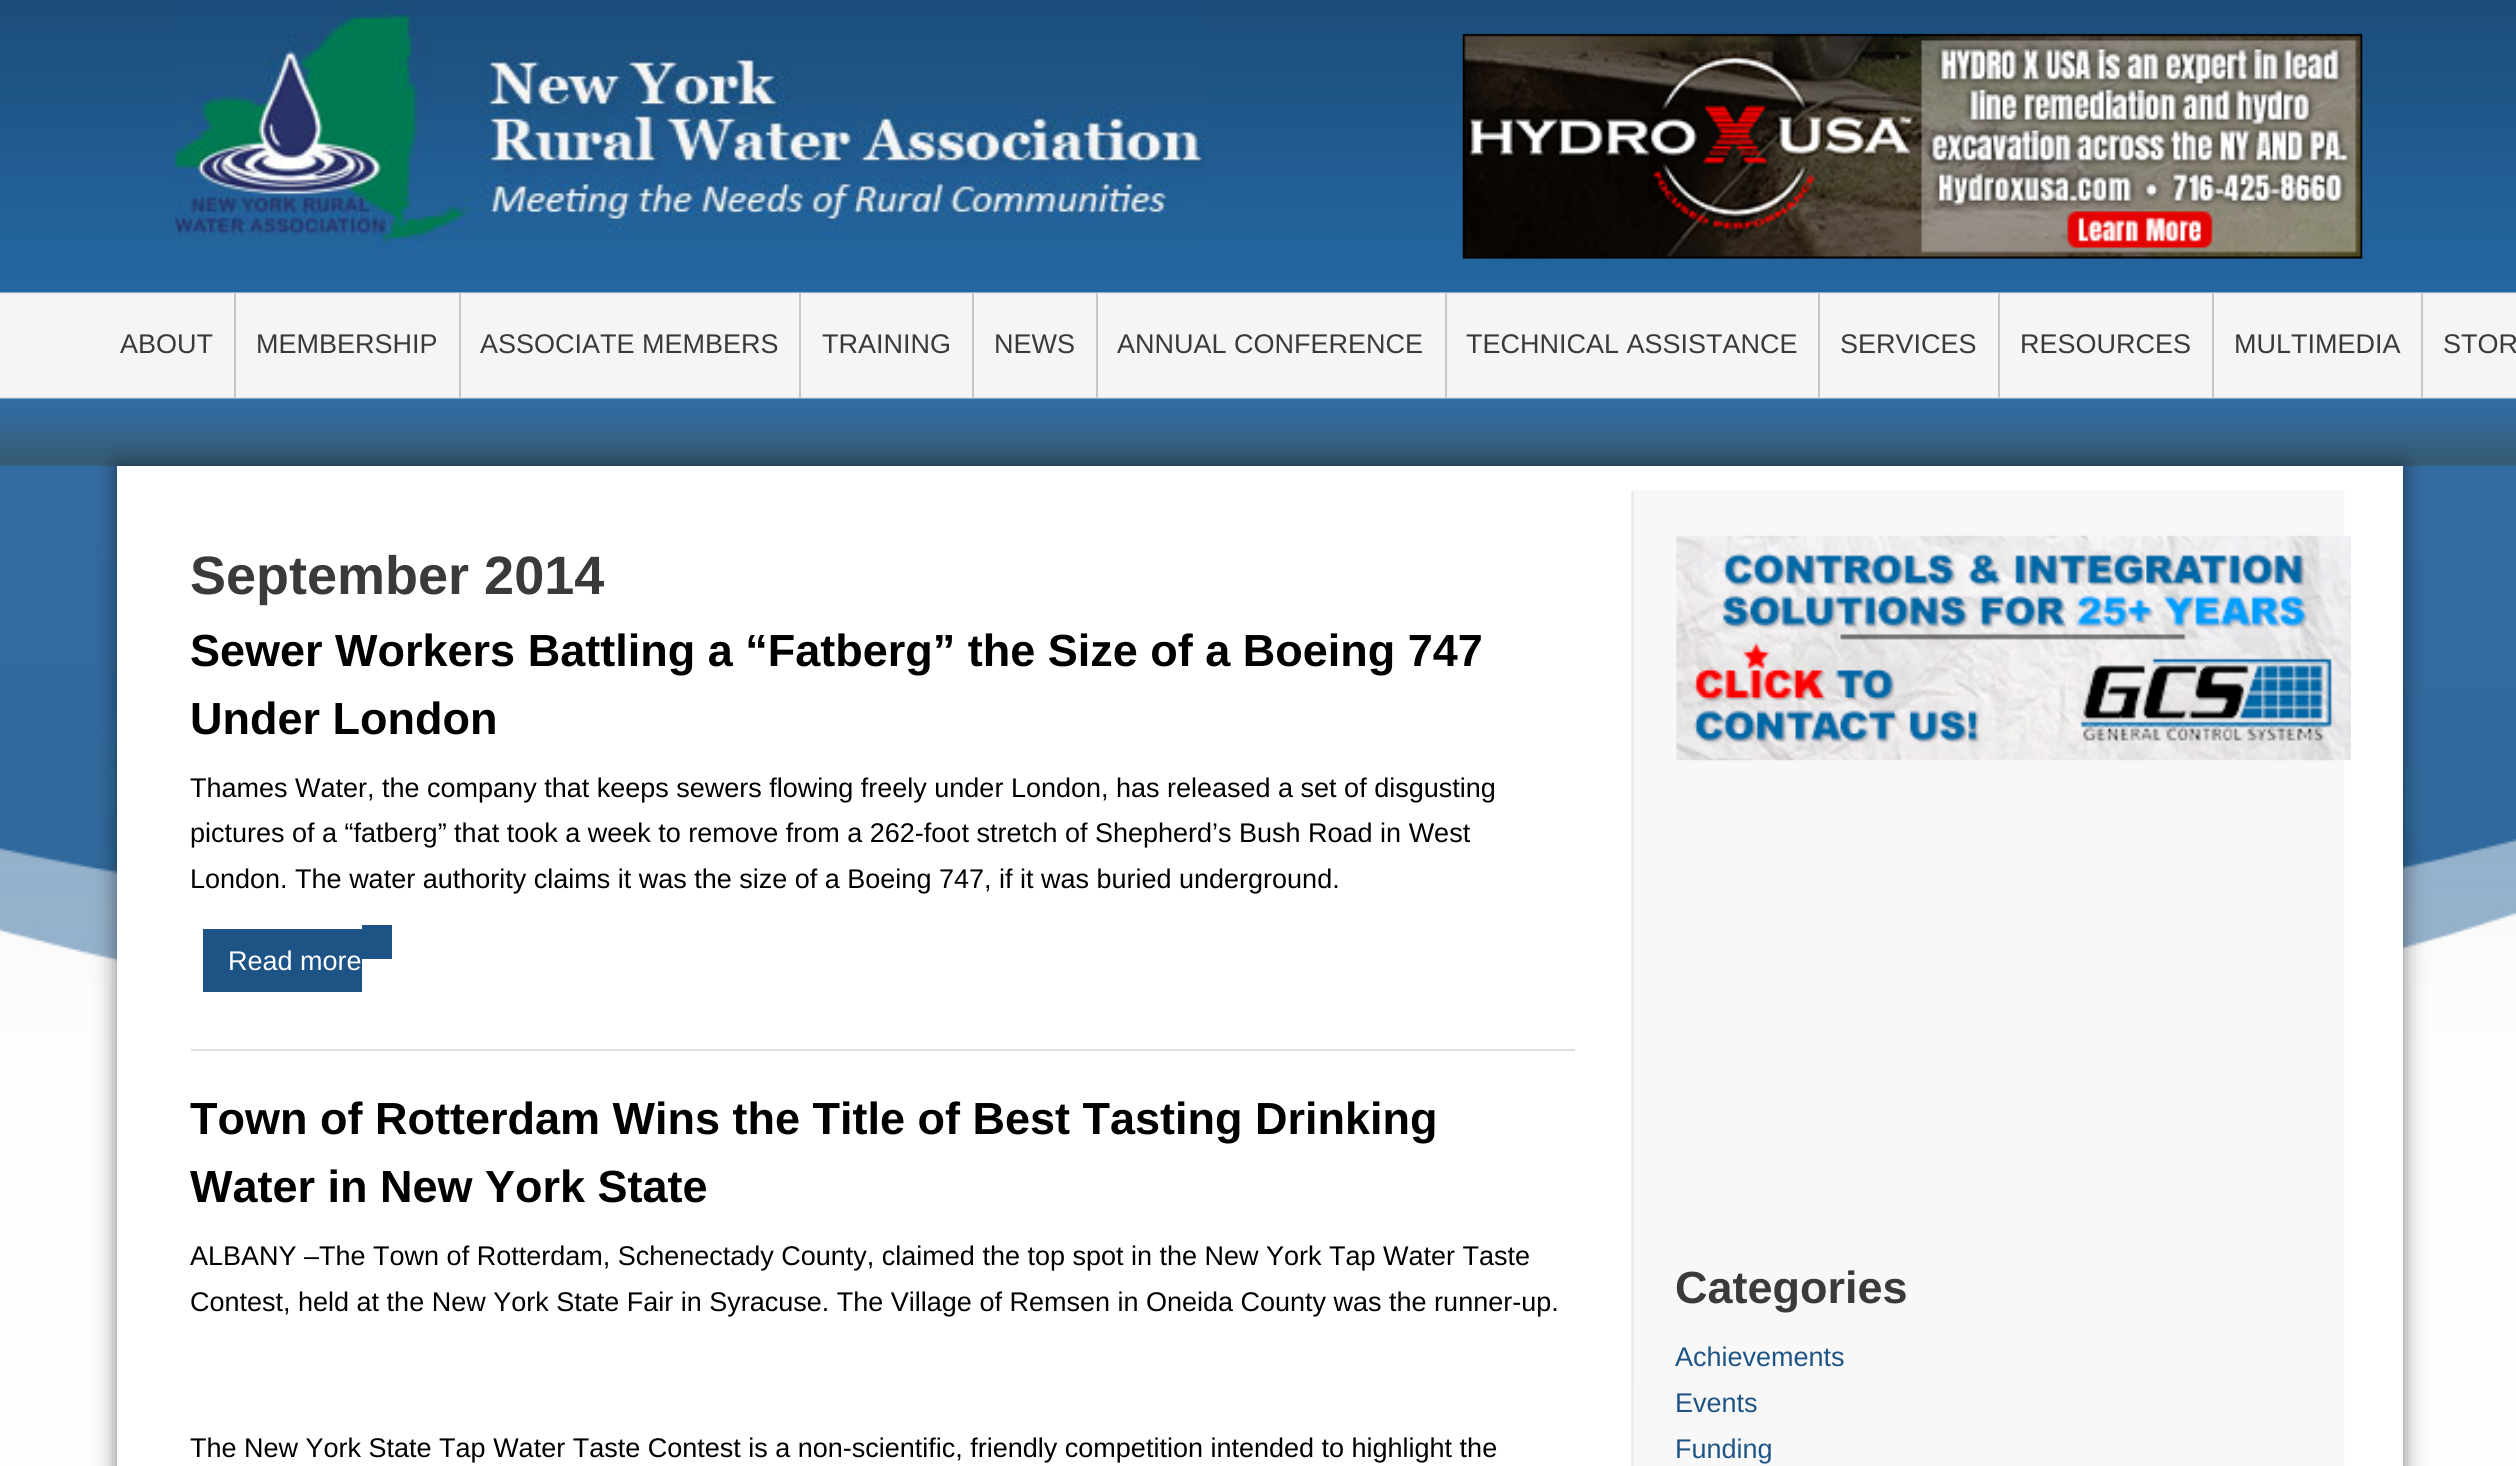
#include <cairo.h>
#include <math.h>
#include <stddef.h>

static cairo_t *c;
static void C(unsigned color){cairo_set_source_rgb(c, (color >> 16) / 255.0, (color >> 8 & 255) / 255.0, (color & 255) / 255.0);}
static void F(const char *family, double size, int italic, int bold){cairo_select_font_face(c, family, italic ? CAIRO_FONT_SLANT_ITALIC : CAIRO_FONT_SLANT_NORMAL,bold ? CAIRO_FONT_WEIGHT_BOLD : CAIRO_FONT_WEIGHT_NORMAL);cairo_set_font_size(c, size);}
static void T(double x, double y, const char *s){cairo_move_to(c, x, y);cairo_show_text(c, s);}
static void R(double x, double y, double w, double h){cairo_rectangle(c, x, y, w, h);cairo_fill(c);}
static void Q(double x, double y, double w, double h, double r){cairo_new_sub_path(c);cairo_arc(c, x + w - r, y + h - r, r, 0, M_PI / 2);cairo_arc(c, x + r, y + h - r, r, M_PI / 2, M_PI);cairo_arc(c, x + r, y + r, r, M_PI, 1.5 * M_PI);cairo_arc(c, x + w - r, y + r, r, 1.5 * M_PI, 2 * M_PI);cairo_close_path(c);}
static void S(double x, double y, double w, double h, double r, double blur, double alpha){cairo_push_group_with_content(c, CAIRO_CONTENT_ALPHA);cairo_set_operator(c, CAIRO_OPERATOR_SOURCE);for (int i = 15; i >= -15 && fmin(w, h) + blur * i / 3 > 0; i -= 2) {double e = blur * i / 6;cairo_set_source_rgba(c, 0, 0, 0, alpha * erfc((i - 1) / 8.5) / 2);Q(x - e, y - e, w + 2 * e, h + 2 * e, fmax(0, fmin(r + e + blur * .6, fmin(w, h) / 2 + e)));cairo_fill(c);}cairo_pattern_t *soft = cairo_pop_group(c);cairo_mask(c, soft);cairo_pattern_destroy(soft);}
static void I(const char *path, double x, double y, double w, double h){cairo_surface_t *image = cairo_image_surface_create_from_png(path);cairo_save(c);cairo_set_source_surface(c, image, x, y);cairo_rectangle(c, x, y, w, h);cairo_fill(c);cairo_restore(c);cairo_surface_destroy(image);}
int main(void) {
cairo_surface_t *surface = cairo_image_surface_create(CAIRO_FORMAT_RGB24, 2516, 1466);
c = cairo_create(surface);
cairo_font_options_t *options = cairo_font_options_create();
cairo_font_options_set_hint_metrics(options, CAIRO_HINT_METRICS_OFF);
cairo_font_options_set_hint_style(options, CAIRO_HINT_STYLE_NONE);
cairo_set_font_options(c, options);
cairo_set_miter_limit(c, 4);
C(0xfdfdfd);
cairo_paint(c);
I("1.png",0,0,2516,1059);
I("2.png",175,0,1030,251);
I("3.png",1462,33,901,226);
C(0xc7c7c7);
R(234,293,2,105);
F("Liberation Sans",27,0,0);
C(0x3a3a3a);
T(120,353,"ABOUT");
C(0xc7c7c7);
R(459,293,2,105);
C(0x3a3a3a);
T(256,353,"MEMBERSHIP");
C(0xc7c7c7);
R(799,293,2,105);
C(0x3a3a3a);
T(480,353,"ASSOCIATE MEMBERS");
C(0xc7c7c7);
R(972,293,2,105);
C(0x3a3a3a);
T(822,353,"TRAINING");
C(0xc7c7c7);
R(1096,293,2,105);
C(0x3a3a3a);
T(994,353,"NEWS");
C(0xc7c7c7);
R(1445,293,2,105);
C(0x3a3a3a);
T(1117,353,"ANNUAL CONFERENCE");
C(0xc7c7c7);
R(1818,293,2,105);
C(0x3a3a3a);
T(1466,353,"TECHNICAL ASSISTANCE");
C(0xc7c7c7);
R(1998,293,2,105);
C(0x3a3a3a);
T(1840,353,"SERVICES");
C(0xc7c7c7);
R(2212,293,2,105);
C(0x3a3a3a);
T(2020,353,"RESOURCES");
C(0xc7c7c7);
R(2421,293,2,105);
C(0x3a3a3a);
T(2234,353,"MULTIMEDIA");
T(2443,353,"STOR");
C(0x000000);
S(117,466,2286,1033,0,11,.5);
C(0xffffff);
R(117,466,2286,1000);
F("Liberation Sans",54,0,1);
C(0x3a3a3a);
T(190,594,"September 2014");
C(0xdfdfdf);
R(191,1049,1384,2);
F("Liberation Sans",45,0,1);
C(0x000000);
T(190,666,"Sewer Workers Battling a “Fatberg” the Size of a Boeing 747");
T(190,734,"Under London");
F("Liberation Sans",27,0,0);
T(190,797,"Thames Water, the company that keeps sewers flowing freely under London, has released a set of disgusting");
T(190,842,"pictures of a “fatberg” that took a week to remove from a 262-foot stretch of Shepherd’s Bush Road in West");
T(190,888,"London. The water authority claims it was the size of a Boeing 747, if it was buried underground.");
C(0x1e5485);
R(203,929,159,63);
C(0xffffff);
T(228,970,"Read more");
C(0x1e5485);
R(362,925,30,34);
F("Liberation Sans",45,0,1);
C(0x000000);
T(190,1134,"Town of Rotterdam Wins the Title of Best Tasting Drinking");
T(190,1202,"Water in New York State");
F("Liberation Sans",27,0,0);
T(190,1265,"ALBANY –The Town of Rotterdam, Schenectady County, claimed the top spot in the New York Tap Water Taste");
T(190,1311,"Contest, held at the New York State Fair in Syracuse. The Village of Remsen in Oneida County was the runner-up.");
T(190,1457,"The New York State Tap Water Taste Contest is a non-scientific, friendly competition intended to highlight the");
I("4.png",1631,490,714,976);
I("5.png",1676,535,675,226);
F("Liberation Sans",45,0,1);
C(0x3a3a3a);
T(1675,1303,"Categories");
F("Liberation Sans",27,0,0);
C(0x1e5485);
T(1675,1366,"Achievements");
T(1675,1412,"Events");
T(1675,1458,"Funding");
cairo_surface_write_to_png(surface, "o.png");
cairo_font_options_destroy(options);
cairo_destroy(c);
cairo_surface_destroy(surface);
return 0;
}
